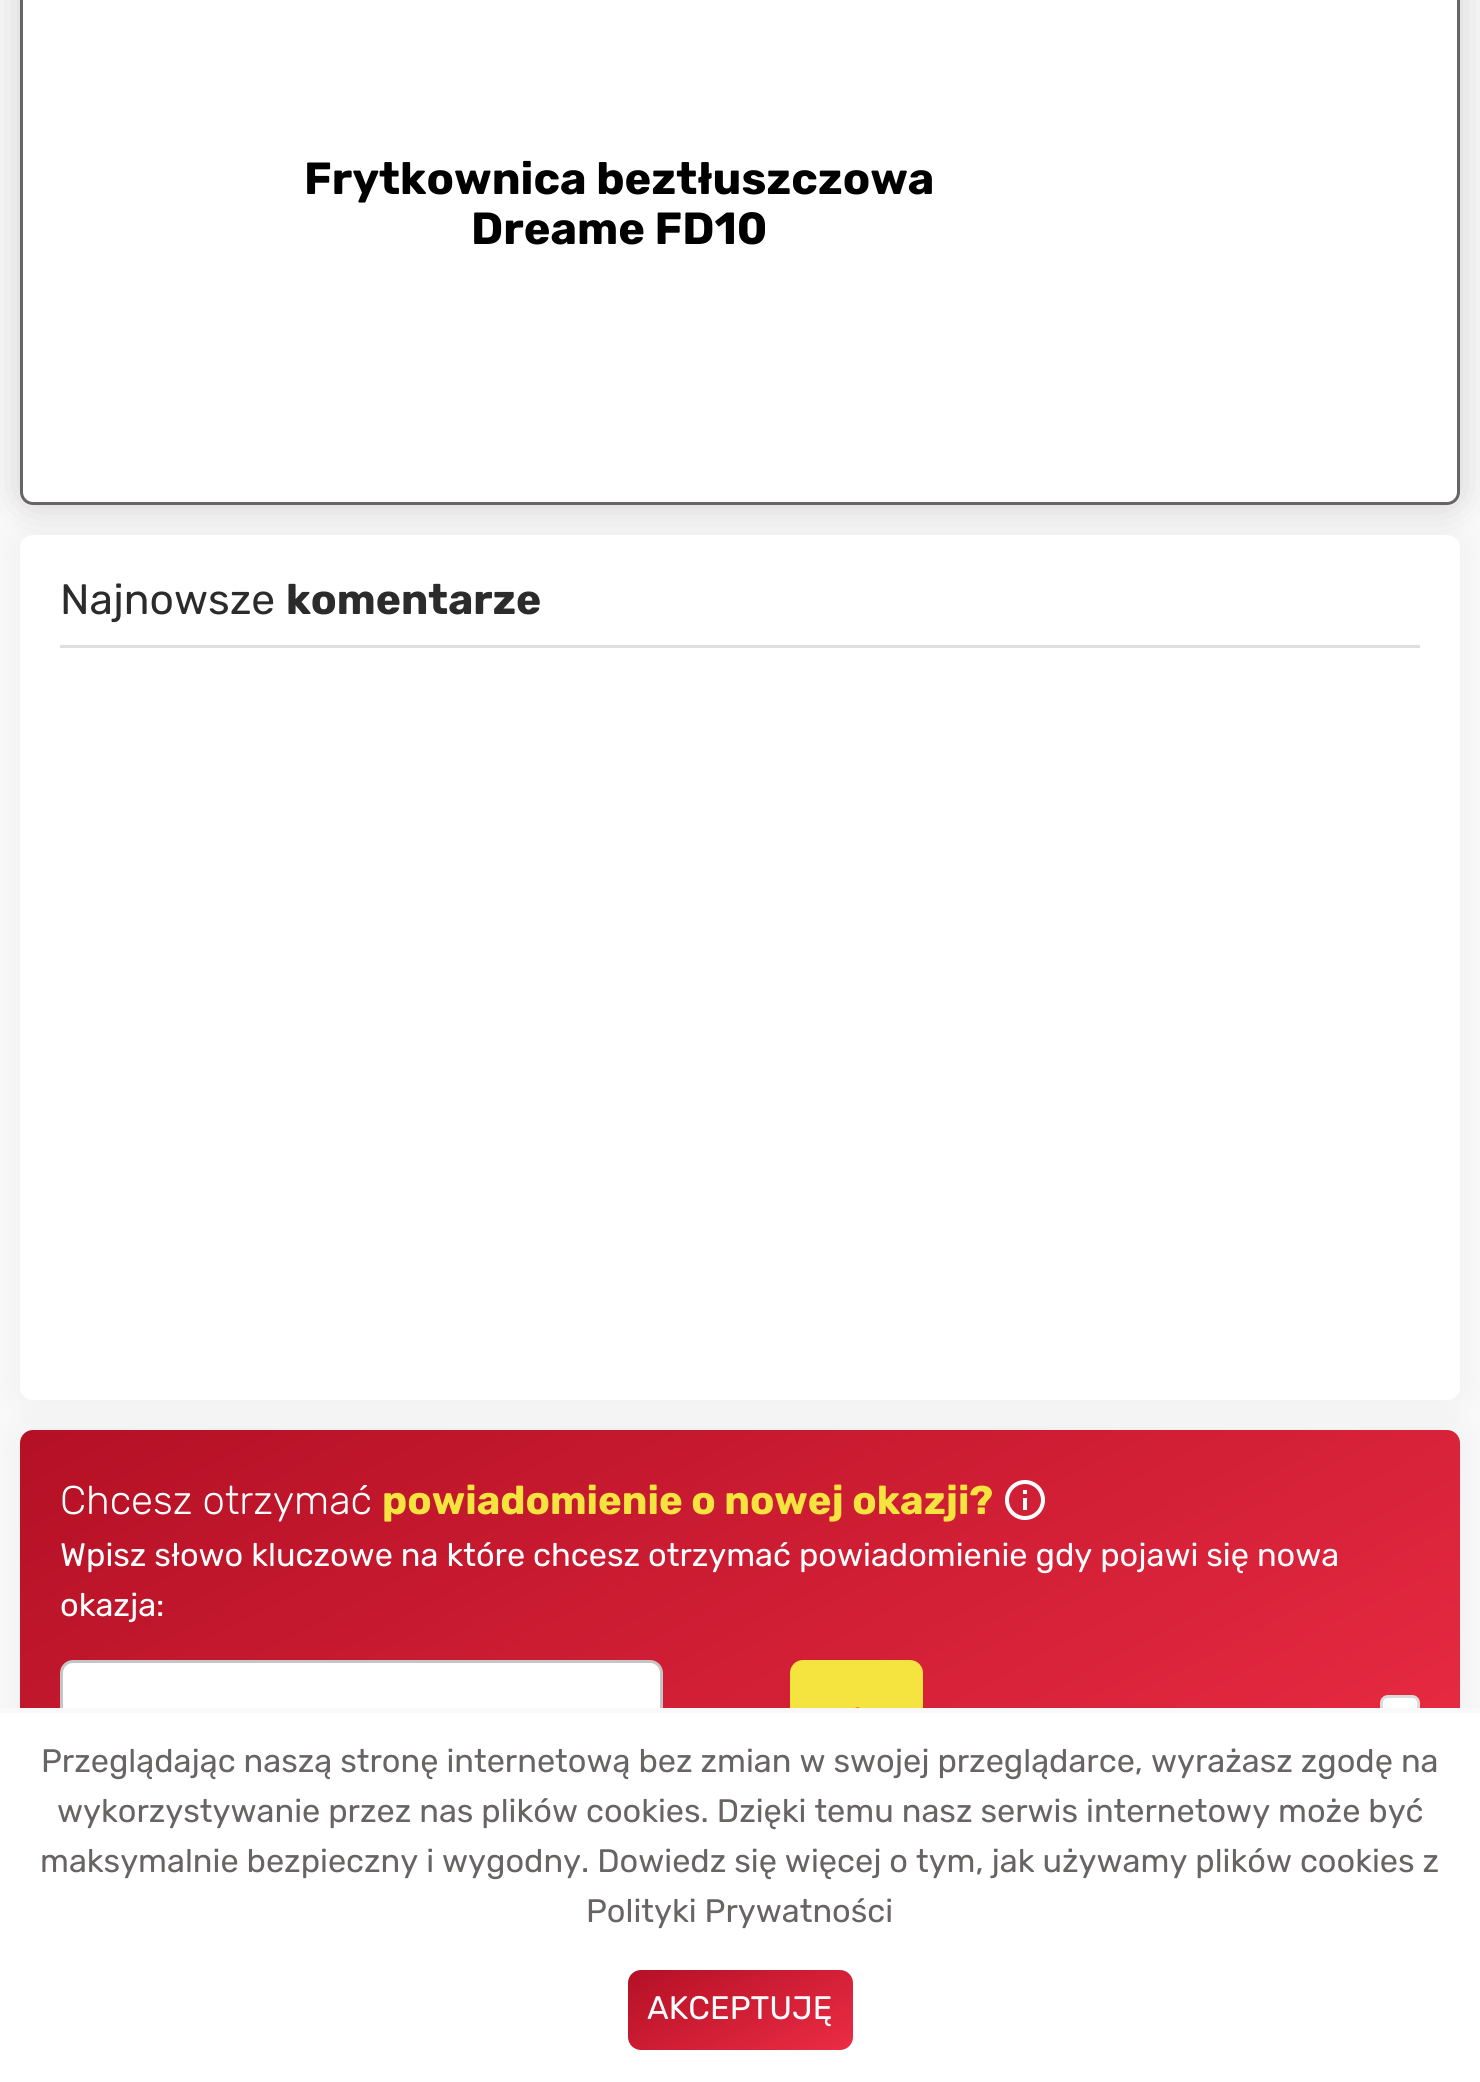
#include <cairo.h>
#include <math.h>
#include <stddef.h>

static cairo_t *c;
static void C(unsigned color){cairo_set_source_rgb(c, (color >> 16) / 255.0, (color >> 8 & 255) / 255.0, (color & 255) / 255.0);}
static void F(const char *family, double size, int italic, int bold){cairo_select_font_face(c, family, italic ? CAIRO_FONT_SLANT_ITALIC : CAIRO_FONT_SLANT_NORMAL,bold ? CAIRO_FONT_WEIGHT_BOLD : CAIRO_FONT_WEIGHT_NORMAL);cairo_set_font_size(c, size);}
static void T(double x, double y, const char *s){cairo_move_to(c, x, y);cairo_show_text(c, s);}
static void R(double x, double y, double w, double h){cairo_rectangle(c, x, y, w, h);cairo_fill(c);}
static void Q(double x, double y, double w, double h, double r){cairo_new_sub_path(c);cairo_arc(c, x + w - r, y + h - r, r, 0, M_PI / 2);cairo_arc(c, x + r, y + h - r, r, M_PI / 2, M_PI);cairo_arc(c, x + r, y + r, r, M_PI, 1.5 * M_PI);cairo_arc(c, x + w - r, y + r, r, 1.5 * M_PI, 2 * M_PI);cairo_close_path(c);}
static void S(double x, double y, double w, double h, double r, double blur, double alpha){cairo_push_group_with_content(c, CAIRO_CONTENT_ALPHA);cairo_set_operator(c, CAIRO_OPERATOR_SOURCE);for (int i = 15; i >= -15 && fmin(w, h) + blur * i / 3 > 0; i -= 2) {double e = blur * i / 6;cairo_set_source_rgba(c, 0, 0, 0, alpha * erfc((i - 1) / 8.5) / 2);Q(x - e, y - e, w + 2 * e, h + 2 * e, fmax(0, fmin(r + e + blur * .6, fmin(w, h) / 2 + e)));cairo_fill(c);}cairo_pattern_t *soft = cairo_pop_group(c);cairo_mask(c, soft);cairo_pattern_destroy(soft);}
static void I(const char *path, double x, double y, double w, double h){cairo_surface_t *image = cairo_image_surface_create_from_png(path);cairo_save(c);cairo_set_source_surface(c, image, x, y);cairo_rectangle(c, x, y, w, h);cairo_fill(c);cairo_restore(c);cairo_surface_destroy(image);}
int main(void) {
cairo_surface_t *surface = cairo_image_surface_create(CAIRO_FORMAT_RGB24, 1480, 2082);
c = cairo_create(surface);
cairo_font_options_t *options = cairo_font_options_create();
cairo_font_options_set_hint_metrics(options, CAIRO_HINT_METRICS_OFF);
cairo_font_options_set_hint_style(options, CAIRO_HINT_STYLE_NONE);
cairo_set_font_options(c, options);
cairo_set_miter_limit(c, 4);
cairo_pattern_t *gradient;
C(0xf9f9f9);
cairo_paint(c);
C(0x000000);
S(20,-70,1440,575,13,19,.16);
C(0xffffff);
Q(21.5,-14.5,1437,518,11.5);
cairo_fill_preserve(c);
C(0x686464);
cairo_set_line_width(c,3);
cairo_stroke(c);
F("Rubik",45,0,1);
C(0x000000);
T(304,194,"Frytkownica beztłuszczowa");
T(471,244,"Dreame FD10");
C(0x000000);
S(20,535,1440,865,13,19,.05);
C(0xffffff);
Q(20,535,1440,865,13);
cairo_fill(c);
C(0xdfdfdf);
R(60,645,1360,3);
F("Rubik",42.5,0,0);
C(0x2b2b2b);
T(60,614,"Najnowsze");
F("Rubik",42.5,0,1);
T(286,614,"komentarze");
C(0x000000);
S(20,1430,1440,403,13,19,.05);
gradient = cairo_pattern_create_linear(982,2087,498,1176);
cairo_pattern_add_color_stop_rgba(gradient,0,0.922,0.173,0.267,1);
cairo_pattern_add_color_stop_rgba(gradient,1,0.706,0.063,0.145,1);
cairo_set_source(c,gradient);
cairo_pattern_destroy(gradient);
Q(20,1430,1440,403,13);
cairo_fill(c);
F("Rubik Light",40,0,0);
C(0xffffff);
T(60,1514,"Chcesz otrzymać");
F("Rubik",40,0,1);
C(0xf5e33f);
T(382,1514,"powiadomienie o nowej okazji?");
I("1.png",1005,1480,40,40);
F("Rubik",32.5,0,0);
C(0xffffff);
T(60,1566,"Wpisz słowo kluczowe na które chcesz otrzymać powiadomienie gdy pojawi się nowa");
T(60,1616,"okazja:");
Q(61.5,1661.5,600,130,11.5);
cairo_fill_preserve(c);
C(0xc5c5c5);
cairo_stroke(c);
C(0xf5e33f);
Q(790,1660,133,133,13);
cairo_fill(c);
I("2.png",855,1707,5,1);
C(0xffffff);
Q(1381.5,1696.5,37,37,6.5);
cairo_fill_preserve(c);
C(0xdbdbdb);
cairo_stroke(c);
C(0xffffff);
R(0,1713,1480,369);
C(0xf9f9f9);
R(0,1708,1480,5);
C(0x686464);
T(41,1772,"Przeglądając naszą stronę internetową bez zmian w swojej przeglądarce, wyrażasz zgodę na");
T(57,1822,"wykorzystywanie przez nas plików cookies. Dzięki temu nasz serwis internetowy może być");
T(40,1872,"maksymalnie bezpieczny i wygodny. Dowiedz się więcej o tym, jak używamy plików cookies z");
T(586,1922,"Polityki Prywatności");
gradient = cairo_pattern_create_linear(781,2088,699,1932);
cairo_pattern_add_color_stop_rgba(gradient,0,0.922,0.173,0.267,1);
cairo_pattern_add_color_stop_rgba(gradient,1,0.706,0.063,0.145,1);
cairo_set_source(c,gradient);
cairo_pattern_destroy(gradient);
Q(628,1970,225,80,13);
cairo_fill(c);
C(0xffffff);
T(647,2019,"AKCEPTUJĘ");
cairo_surface_write_to_png(surface, "o.png");
cairo_font_options_destroy(options);
cairo_destroy(c);
cairo_surface_destroy(surface);
return 0;
}
